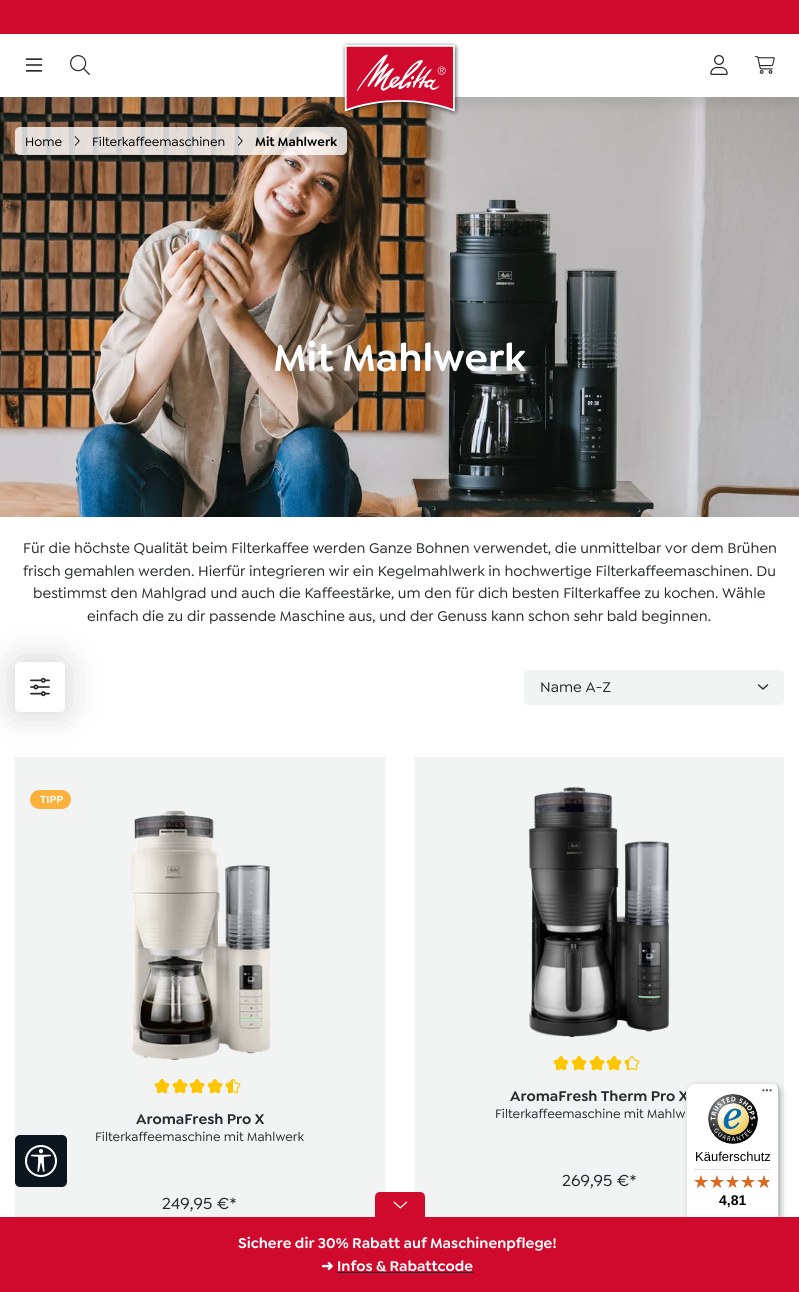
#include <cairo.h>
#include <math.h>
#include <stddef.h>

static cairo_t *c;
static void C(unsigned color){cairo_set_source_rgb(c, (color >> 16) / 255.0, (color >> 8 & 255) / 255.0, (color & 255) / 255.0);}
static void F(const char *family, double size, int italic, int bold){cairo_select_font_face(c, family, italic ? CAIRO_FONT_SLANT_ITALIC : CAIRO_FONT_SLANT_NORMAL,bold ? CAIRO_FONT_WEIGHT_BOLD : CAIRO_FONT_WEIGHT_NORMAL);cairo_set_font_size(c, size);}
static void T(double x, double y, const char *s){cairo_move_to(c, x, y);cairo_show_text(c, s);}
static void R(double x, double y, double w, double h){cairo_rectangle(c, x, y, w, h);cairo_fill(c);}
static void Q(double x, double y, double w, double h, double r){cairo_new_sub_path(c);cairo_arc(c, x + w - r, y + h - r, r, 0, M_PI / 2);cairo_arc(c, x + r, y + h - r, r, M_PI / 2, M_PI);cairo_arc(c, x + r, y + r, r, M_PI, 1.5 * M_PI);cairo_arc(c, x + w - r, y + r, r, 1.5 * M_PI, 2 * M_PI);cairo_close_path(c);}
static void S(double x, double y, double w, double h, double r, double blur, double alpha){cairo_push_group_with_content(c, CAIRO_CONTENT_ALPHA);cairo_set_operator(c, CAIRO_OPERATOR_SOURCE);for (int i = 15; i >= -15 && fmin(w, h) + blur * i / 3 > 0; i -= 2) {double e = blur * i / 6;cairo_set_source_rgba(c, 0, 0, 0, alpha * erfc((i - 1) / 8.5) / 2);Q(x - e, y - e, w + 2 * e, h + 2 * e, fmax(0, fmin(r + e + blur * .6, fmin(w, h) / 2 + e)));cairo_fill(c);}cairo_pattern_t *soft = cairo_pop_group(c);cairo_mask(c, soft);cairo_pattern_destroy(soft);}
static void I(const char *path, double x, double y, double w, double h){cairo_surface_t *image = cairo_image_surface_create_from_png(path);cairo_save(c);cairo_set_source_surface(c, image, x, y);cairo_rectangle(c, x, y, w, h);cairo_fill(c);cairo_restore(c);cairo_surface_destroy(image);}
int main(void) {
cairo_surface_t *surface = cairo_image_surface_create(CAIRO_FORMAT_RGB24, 799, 1292);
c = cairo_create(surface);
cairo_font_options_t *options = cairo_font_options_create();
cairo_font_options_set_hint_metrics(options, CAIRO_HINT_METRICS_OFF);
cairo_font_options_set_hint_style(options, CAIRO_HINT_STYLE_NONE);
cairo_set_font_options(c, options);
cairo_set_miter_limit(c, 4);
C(0xffffff);
cairo_paint(c);
I("8.png",0,97,799,420);
cairo_save(c);
cairo_rectangle(c,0,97,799,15);
cairo_clip(c);
C(0x6b6b6b);
S(0,8,799,97,0,6,.17);
cairo_restore(c);
C(0xcf0a2c);
R(0,0,799,34);
I("1.png",25,58,18,14);
I("2.png",70,55,20,20);
I("3.png",342,42,118,74);
I("4.png",710,55,18,20);
I("5.png",755,56,20,18);
cairo_set_source_rgba(c,1,1,1,0.8);
Q(15,127,332,28,5);
cairo_fill(c);
F("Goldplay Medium",13,0,0);
C(0x000000);
T(25,146,"Home");
I("6.png",74,136,6,10);
T(92,146,"Filterkaffeemaschinen");
I("7.png",237,136,6,10);
F("Goldplay SemiBold",13,0,0);
T(255,146,"Mit Mahlwerk");
F("Goldplay SemiBold",40,0,0);
C(0xffffff);
T(273,371,"Mit Mahlwerk");
F("Goldplay Medium",15,0,0);
C(0x282a2d);
T(23,553,"Für die höchste Qualität beim Filterkaffee werden Ganze Bohnen verwendet, die unmittelbar vor dem Brühen");
T(23,576,"frisch gemahlen werden. Hierfür integrieren wir ein Kegelmahlwerk in hochwertige Filterkaffeemaschinen. Du");
T(33,598,"bestimmst den Mahlgrad und auch die Kaffeestärke, um den für dich besten Filterkaffee zu kochen. Wähle");
T(87,621,"einfach die zu dir passende Maschine aus, und der Genuss kann schon sehr bald beginnen.");
C(0xf2f3f3);
R(15,757,370,460);
C(0x000000);
S(15,662,50,50,5,17.5,.2);
C(0xffffff);
Q(15,662,50,50,5);
cairo_fill(c);
I("9.png",30,677,20,20);
C(0xf2f3f3);
Q(524,670,260,35,5);
cairo_fill(c);
cairo_new_path(c);
cairo_move_to(c,758.5,685);
cairo_line_to(c,763,689);
cairo_line_to(c,767.5,685);
C(0x343a40);
cairo_set_line_width(c,1.5);
cairo_set_line_cap(c,CAIRO_LINE_CAP_ROUND);
cairo_set_line_join(c,CAIRO_LINE_JOIN_ROUND);
cairo_stroke(c);
Q(524.5,670.5,259,34,4.5);
C(0xf2f3f3);
cairo_set_line_width(c,1);
cairo_set_line_cap(c,CAIRO_LINE_CAP_BUTT);
cairo_set_line_join(c,CAIRO_LINE_JOIN_MITER);
cairo_stroke(c);
C(0x282a2d);
T(540,692,"Name A-Z");
C(0xfbb13c);
Q(30,790,41,19,9.5);
cairo_fill(c);
F("Goldplay SemiBold",11,0,0);
C(0xffffff);
T(40,803,"TIPP");
I("10.png",130,810,141,250);
I("11.png",154,1079,16,15);
I("11.png",172,1079,16,15);
I("11.png",189,1079,16,15);
I("11.png",207,1079,16,15);
I("12.png",225,1079,16,15);
I("13.png",226,1079,7,15);
F("Goldplay SemiBold",15,0,0);
C(0x282a2d);
T(136,1124,"AromaFresh Pro X");
F("Goldplay Medium",13,0,0);
T(95,1141,"Filterkaffeemaschine mit Mahlwerk");
F("Goldplay Medium",17,0,0);
T(162,1209,"249,95 €*");
C(0xf2f3f3);
R(415,757,369,460);
I("14.png",528,787,142,250);
I("11.png",553,1056,16,15);
I("11.png",571,1056,16,15);
I("11.png",589,1056,16,15);
I("11.png",606,1056,16,15);
I("12.png",624,1056,16,15);
I("15.png",625,1059,4,12);
F("Goldplay SemiBold",15,0,0);
C(0x282a2d);
T(510,1101,"AromaFresh Therm Pro X");
F("Goldplay Medium",13,0,0);
T(495,1118,"Filterkaffeemaschine mit Mahlw");
F("Goldplay Medium",17,0,0);
T(562,1186,"269,95 €*");
C(0x0c1620);
Q(15,1135,52,52,5);
cairo_fill(c);
I("16.png",25,1145,32,32);
C(0x000000);
S(689,1086,93,155,8,4,.15);
S(687,1084,93,155,8,1,.15);
C(0xffffff);
Q(686,1083,93,155,8);
cairo_fill(c);
cairo_set_source_rgba(c,0,0,0,0.1);
cairo_new_path(c);
cairo_move_to(c,695,1084);
cairo_line_to(c,772,1084);
cairo_curve_to(c,774,1084,776,1085,778,1087);
cairo_curve_to(c,776,1085,774,1083,771,1083);
cairo_line_to(c,694,1083);
cairo_curve_to(c,690,1083,686,1087,686,1091);
cairo_line_to(c,686,1230);
cairo_curve_to(c,686,1233,688,1235,690,1237);
cairo_curve_to(c,688,1235,687,1233,687,1231);
cairo_line_to(c,687,1092);
cairo_curve_to(c,687,1088,691,1084,695,1084);
cairo_close_path(c);
cairo_fill(c);
cairo_set_source_rgba(c,0,0,0,0.2);
cairo_new_path(c);
cairo_move_to(c,687,1234);
cairo_curve_to(c,689,1236,691,1238,694,1238);
cairo_line_to(c,771,1238);
cairo_curve_to(c,775,1238,779,1234,779,1230);
cairo_line_to(c,779,1091);
cairo_curve_to(c,779,1088,777,1086,775,1084);
cairo_curve_to(c,777,1086,778,1088,778,1090);
cairo_line_to(c,778,1229);
cairo_curve_to(c,778,1233,774,1237,770,1237);
cairo_line_to(c,693,1237);
cairo_curve_to(c,691,1237,689,1236,687,1234);
cairo_close_path(c);
cairo_fill(c);
cairo_set_source_rgba(c,0.196,0.196,0.196,0.2);
cairo_new_path(c);
cairo_move_to(c,688,1235);
cairo_curve_to(c,689,1237,692,1238,694,1238);
cairo_line_to(c,771,1238);
cairo_curve_to(c,775,1238,779,1234,779,1230);
cairo_line_to(c,779,1091);
cairo_curve_to(c,779,1089,778,1086,776,1085);
cairo_curve_to(c,777,1086,778,1088,778,1090);
cairo_line_to(c,778,1229);
cairo_curve_to(c,778,1234,775,1237,770,1237);
cairo_line_to(c,693,1237);
cairo_curve_to(c,691,1237,689,1236,688,1235);
cairo_close_path(c);
cairo_fill(c);
cairo_set_source_rgba(c,1,1,1,0.3);
cairo_new_path(c);
cairo_move_to(c,770,1238);
cairo_line_to(c,771,1238);
cairo_curve_to(c,775,1238,779,1234,779,1230);
cairo_line_to(c,779,1091);
cairo_curve_to(c,779,1089,778,1086,776,1085);
cairo_curve_to(c,777,1086,778,1088,778,1090);
cairo_line_to(c,778,1230);
cairo_curve_to(c,778,1234,775,1238,770,1238);
cairo_close_path(c);
cairo_fill(c);
I("17.png",762,1089,10,3);
I("18.png",708,1094,50,50);
F("Liberation Sans",13,0,0);
C(0x000000);
T(695,1161,"Käuferschutz");
C(0xe5e5e5);
R(694,1169,77,1);
I("19.png",694,1175,14,13);
I("19.png",710,1175,14,13);
I("20.png",726,1175,13,13);
I("19.png",741,1175,14,13);
I("19.png",757,1175,14,13);
I("21.png",694,1175,14,13);
I("21.png",710,1175,14,13);
I("22.png",726,1175,13,13);
I("21.png",741,1175,14,13);
I("23.png",757,1175,12,13);
F("Liberation Sans",14,0,1);
C(0x000000);
T(719,1205,"4,81");
C(0xcf0a2c);
R(0,1217,799,75);
cairo_new_path(c);
cairo_move_to(c,380,1192);
cairo_line_to(c,420,1192);
cairo_curve_to(c,423,1192,425,1194,425,1197);
cairo_line_to(c,425,1218);
cairo_line_to(c,375,1218);
cairo_line_to(c,375,1197);
cairo_curve_to(c,375,1194,377,1192,380,1192);
cairo_close_path(c);
cairo_fill(c);
I("24.png",393,1201,15,8);
F("Goldplay SemiBold",15,0,0);
C(0xffffff);
T(238,1248,"Sichere dir 30% Rabatt auf Maschinenpflege!");
F("DejaVu Sans",15,0,1);
T(321,1271,"➜");
F("Goldplay SemiBold",15,0,0);
T(337,1271,"Infos & Rabattcode");
C(0x282a2d);
R(337,1272,136,1);
cairo_surface_write_to_png(surface, "o.png");
cairo_font_options_destroy(options);
cairo_destroy(c);
cairo_surface_destroy(surface);
return 0;
}
